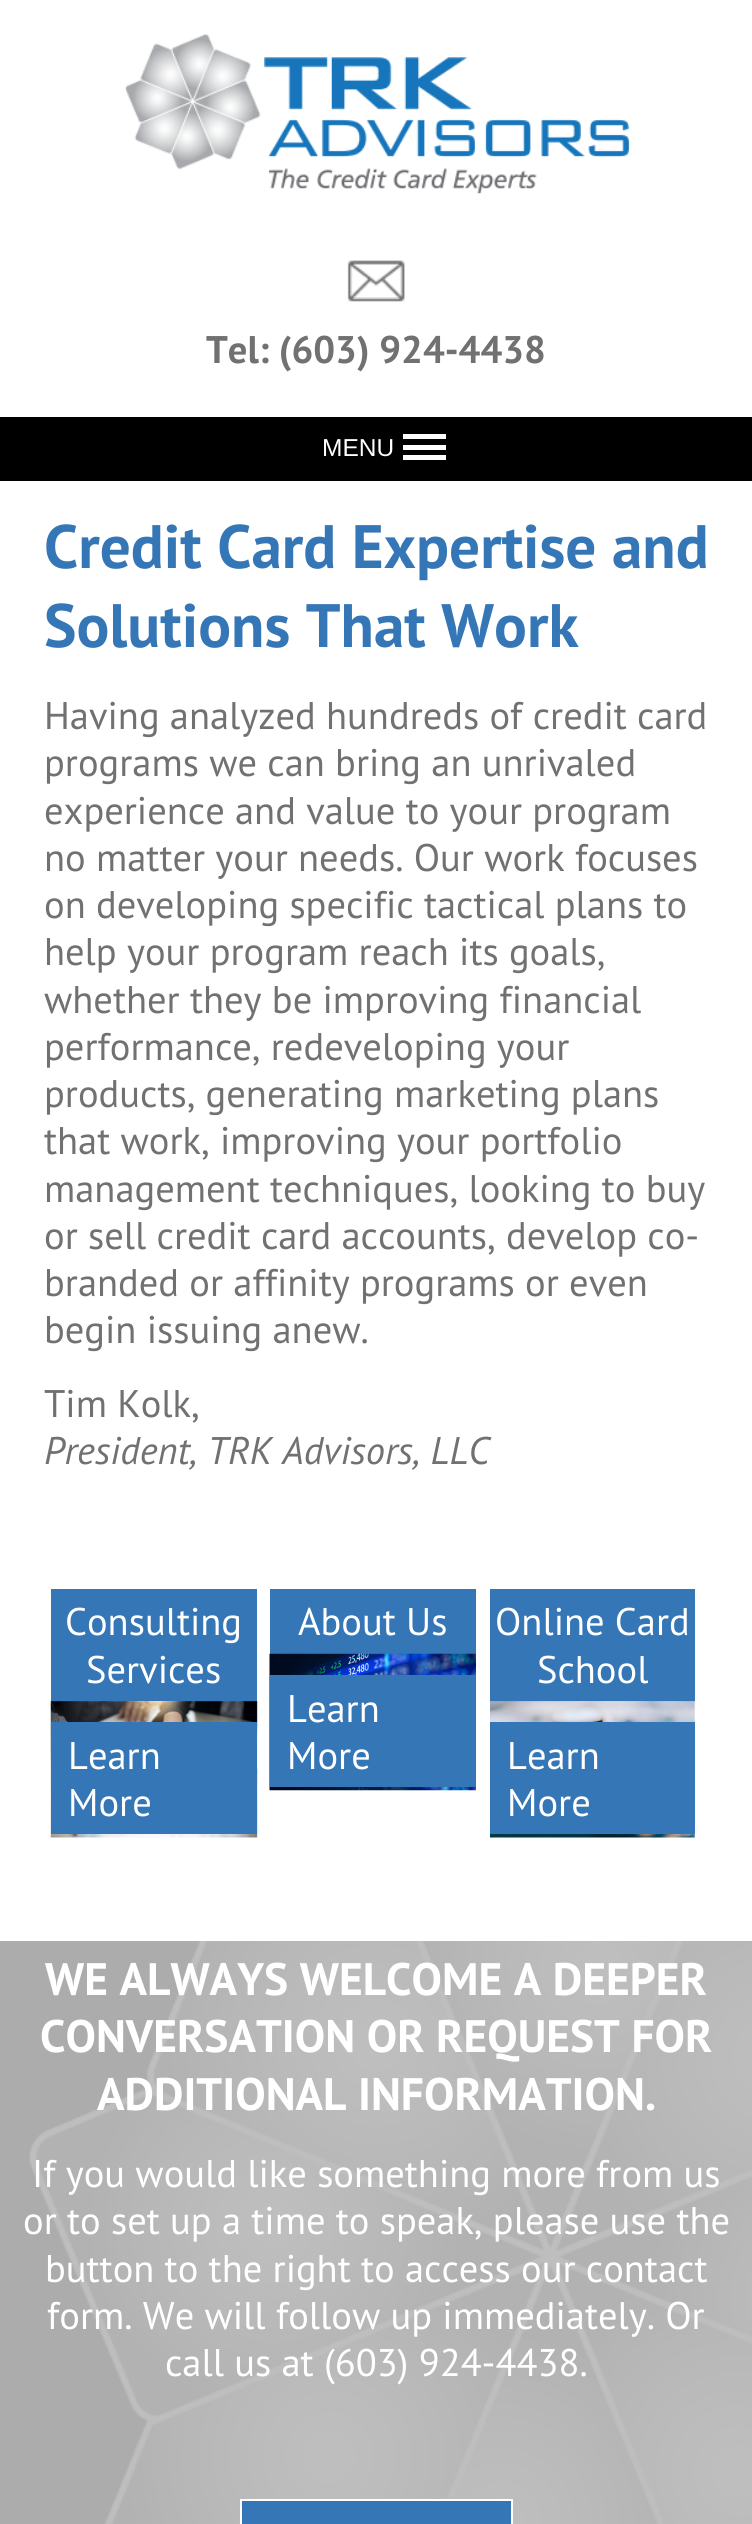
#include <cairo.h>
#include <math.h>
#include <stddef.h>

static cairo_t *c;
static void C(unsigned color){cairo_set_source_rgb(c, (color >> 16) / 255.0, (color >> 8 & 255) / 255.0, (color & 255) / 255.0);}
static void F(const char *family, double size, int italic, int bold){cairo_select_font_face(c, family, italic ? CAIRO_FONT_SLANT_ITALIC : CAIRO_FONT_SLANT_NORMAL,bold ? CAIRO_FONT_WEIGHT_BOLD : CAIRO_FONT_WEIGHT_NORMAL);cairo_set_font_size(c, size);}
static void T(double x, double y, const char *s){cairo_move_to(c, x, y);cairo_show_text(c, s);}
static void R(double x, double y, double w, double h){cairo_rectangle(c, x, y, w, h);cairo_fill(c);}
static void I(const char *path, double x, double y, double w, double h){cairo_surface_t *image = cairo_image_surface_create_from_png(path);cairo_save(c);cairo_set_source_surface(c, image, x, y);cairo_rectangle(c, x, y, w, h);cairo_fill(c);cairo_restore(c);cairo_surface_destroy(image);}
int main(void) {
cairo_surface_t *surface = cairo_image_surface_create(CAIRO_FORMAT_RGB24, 752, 2524);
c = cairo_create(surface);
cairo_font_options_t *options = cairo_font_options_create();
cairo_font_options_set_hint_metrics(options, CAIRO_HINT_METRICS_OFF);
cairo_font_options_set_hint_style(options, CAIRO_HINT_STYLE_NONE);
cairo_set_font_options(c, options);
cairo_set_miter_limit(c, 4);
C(0xffffff);
cairo_paint(c);
I("1.png",125,33,505,161);
I("2.png",347,260,58,42);
F("PT Sans",38.5,0,1);
C(0x717171);
T(206,363,"Tel: (603) 924-4438");
C(0x000000);
R(0,417,752,64);
F("Liberation Sans",24.5,0,0);
C(0xffffff);
T(322,456,"MENU");
R(403,434,43,5);
R(403,445,43,5);
R(403,455,43,5);
F("PT Sans",61.25,0,1);
C(0x3576b6);
T(44,568,"Credit Card Expertise and");
T(44,647,"Solutions That Work");
F("PT Sans",38.5,0,0);
C(0x717171);
T(44,729,"Having analyzed hundreds of credit card");
T(44,776,"programs we can bring an unrivaled");
T(44,824,"experience and value to your program");
T(44,871,"no matter your needs. Our work focuses");
T(44,918,"on developing specific tactical plans to");
T(44,965,"help your program reach its goals,");
T(44,1013,"whether they be improving financial");
T(44,1060,"performance, redeveloping your");
T(44,1107,"products, generating marketing plans");
T(44,1154,"that work, improving your portfolio");
T(44,1202,"management techniques, looking to buy");
T(44,1249,"or sell credit card accounts, develop co-");
T(44,1296,"branded or affinity programs or even");
T(44,1343,"begin issuing anew.");
T(44,1417,"Tim Kolk,");
F("PT Sans",38.5,1,0);
T(44,1464,"President, TRK Advisors, LLC");
C(0x3576b6);
R(51,1589,206,112);
F("PT Sans",38.5,0,0);
C(0xffffff);
T(65,1635,"Consulting");
T(86,1683,"Services");
I("3.png",50,1701,208,137);
C(0x3576b6);
R(51,1722,206,112);
C(0xffffff);
T(68,1769,"Learn");
T(68,1816,"More");
C(0x3576b6);
R(270,1589,206,65);
C(0xffffff);
T(298,1635,"About Us");
I("4.png",269,1653,207,138);
C(0x3576b6);
R(270,1675,206,112);
C(0xffffff);
T(287,1722,"Learn");
T(287,1769,"More");
C(0x3576b6);
R(490,1589,205,112);
C(0xffffff);
T(495,1635,"Online Card");
T(537,1683,"School");
I("5.png",490,1701,205,137);
C(0x3576b6);
R(490,1722,205,112);
C(0xffffff);
T(507,1769,"Learn");
T(507,1816,"More");
C(0xacacac);
R(0,1941,29,583);
I("6.png",29,1941,723,583);
F("PT Sans",45.5,0,1);
C(0xffffff);
T(45,1995,"WE ALWAYS WELCOME A DEEPER");
T(40,2052,"CONVERSATION OR REQUEST FOR");
T(97,2110,"ADDITIONAL INFORMATION.");
F("PT Sans",38.5,0,0);
T(32,2187,"If you would like something more from us");
T(23,2234,"or to set up a time to speak, please use the");
T(45,2282,"button to the right to access our contact");
T(47,2329,"form. We will follow up immediately. Or");
T(165,2376,"call us at (603) 924-4438.");
C(0x3576b6);
cairo_rectangle(c,241,2500,271,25);
cairo_fill_preserve(c);
C(0xffffff);
cairo_stroke(c);
cairo_surface_write_to_png(surface, "o.png");
cairo_font_options_destroy(options);
cairo_destroy(c);
cairo_surface_destroy(surface);
return 0;
}
